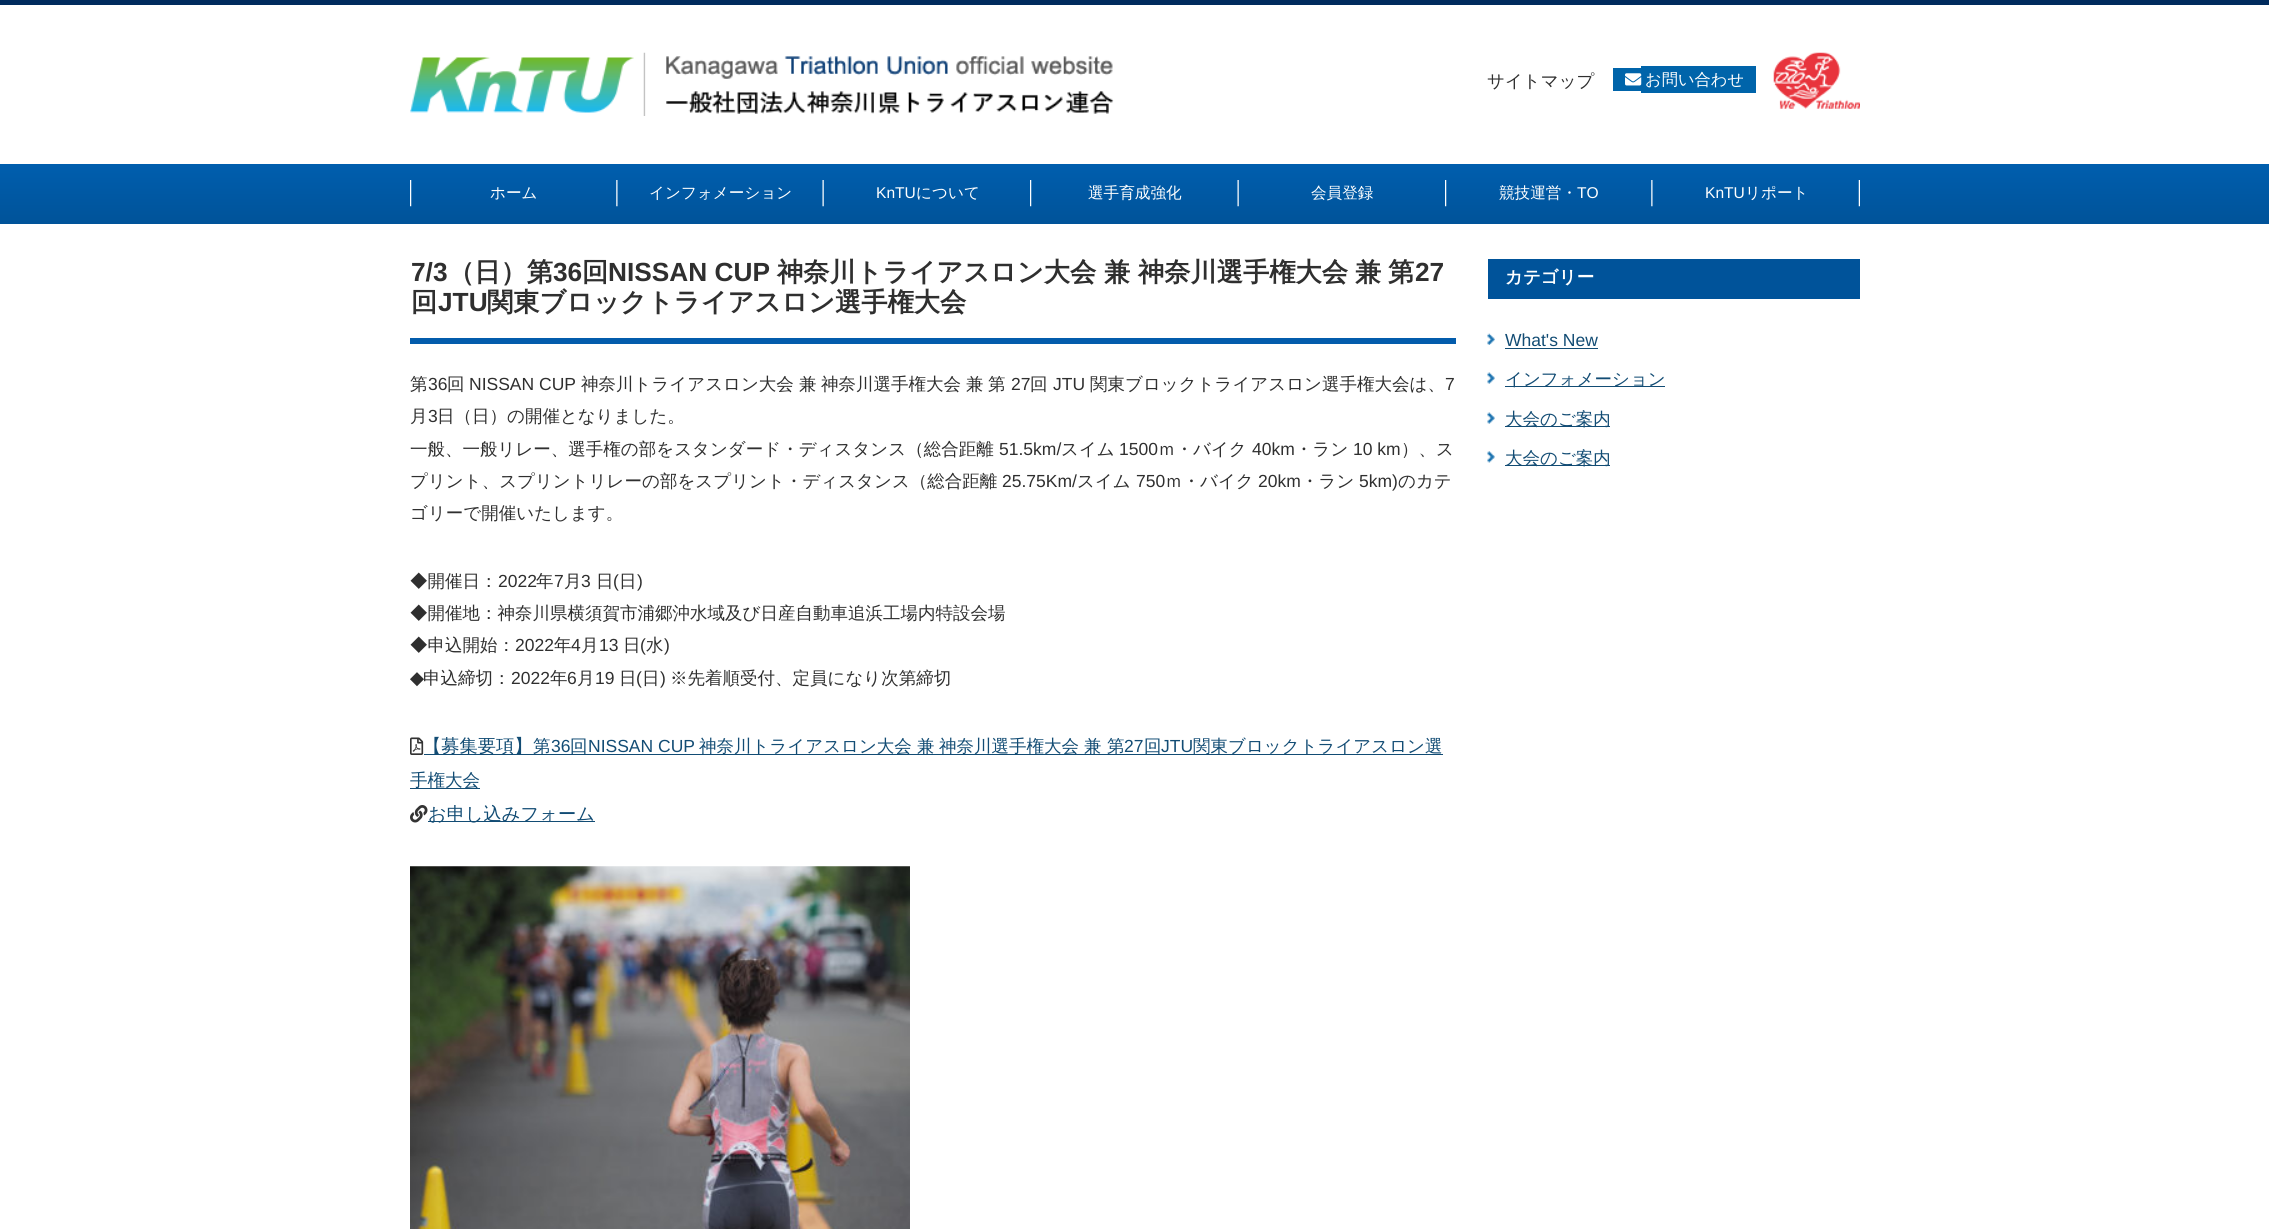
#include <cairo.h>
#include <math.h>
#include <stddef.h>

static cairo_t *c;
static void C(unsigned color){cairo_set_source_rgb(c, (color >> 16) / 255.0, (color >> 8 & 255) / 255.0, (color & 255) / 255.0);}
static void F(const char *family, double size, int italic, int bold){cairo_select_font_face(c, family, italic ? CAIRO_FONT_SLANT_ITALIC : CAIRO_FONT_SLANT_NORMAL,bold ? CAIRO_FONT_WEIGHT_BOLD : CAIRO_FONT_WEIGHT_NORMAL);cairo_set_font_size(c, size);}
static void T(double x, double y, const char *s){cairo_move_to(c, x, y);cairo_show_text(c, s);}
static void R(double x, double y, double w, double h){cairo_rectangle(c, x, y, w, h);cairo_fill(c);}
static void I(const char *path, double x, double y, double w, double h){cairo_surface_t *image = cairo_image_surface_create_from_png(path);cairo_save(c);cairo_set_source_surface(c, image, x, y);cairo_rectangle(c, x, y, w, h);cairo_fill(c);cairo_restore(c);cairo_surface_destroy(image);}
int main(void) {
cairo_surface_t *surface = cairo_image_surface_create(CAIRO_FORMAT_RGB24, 2269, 1229);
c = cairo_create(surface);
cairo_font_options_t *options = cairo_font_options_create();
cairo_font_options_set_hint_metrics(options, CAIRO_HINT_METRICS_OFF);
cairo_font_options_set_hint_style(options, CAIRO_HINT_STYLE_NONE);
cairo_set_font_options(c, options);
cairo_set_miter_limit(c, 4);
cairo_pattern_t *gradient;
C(0xffffff);
cairo_paint(c);
C(0x002b5d);
R(0,0,2269,5);
I("1.png",410,52,704,64);
F("WenQuanYi Zen Hei Medium",17.5,0,0);
C(0x2f2f2f);
T(1487,87,"サイトマップ");
C(0x0064aa);
R(1613,68,28,23);
R(1641,66,115,27);
I("2.png",1625,73,17,13);
F("WenQuanYi Zen Hei Medium",16.25,0,0);
C(0xffffff);
T(1645,85,"お問い合わせ");
I("3.png",1773,52,87,57);
gradient = cairo_pattern_create_linear(1135,164,1135,224);
cairo_pattern_add_color_stop_rgba(gradient,0,0,0.369,0.682,1);
cairo_pattern_add_color_stop_rgba(gradient,1,0,0.325,0.6,1);
cairo_set_source(c,gradient);
cairo_pattern_destroy(gradient);
R(0,164,2269,60);
I("4.png",410,180,2,27);
I("5.png",616,180,2,27);
F("WenQuanYi Zen Hei Medium",15.6,0,0);
C(0xffffff);
T(490,198,"ホーム");
I("6.png",822,180,2,27);
T(649,198,"インフォメーション");
I("4.png",1030,180,2,27);
F("Liberation Sans",15.6,0,0);
T(876,198,"KnTU");
F("WenQuanYi Zen Hei Medium",15.6,0,0);
T(916,198,"について");
I("6.png",1237,180,2,27);
T(1088,198,"選手育成強化");
I("4.png",1445,180,2,27);
T(1311,198,"会員登録");
I("5.png",1651,180,2,27);
T(1499,198,"競技運営・");
F("Liberation Sans",15.6,0,0);
T(1577,198,"TO");
I("7.png",1858,180,2,27);
T(1705,198,"KnTU");
F("WenQuanYi Zen Hei Medium",15.6,0,0);
T(1745,198,"リポート");
C(0x035cac);
R(410,338,1046,6);
F("Liberation Sans",26.25,0,1);
C(0x2f2f2f);
T(411,281,"7/3");
F("WenQuanYi Zen Hei",26.25,0,1);
T(448,281,"（日）第");
F("Liberation Sans",26.25,0,1);
T(553,281,"36");
F("WenQuanYi Zen Hei",26.25,0,1);
T(582,281,"回");
F("Liberation Sans",26.25,0,1);
T(608,281,"NISSAN CUP");
F("WenQuanYi Zen Hei",26.25,0,1);
T(777,281,"神奈川トライアスロン大会");
T(1104,281,"兼");
T(1138,281,"神奈川選手権大会");
T(1355,281,"兼");
T(1388,281,"第");
F("Liberation Sans",26.25,0,1);
T(1415,281,"27");
F("WenQuanYi Zen Hei",26.25,0,1);
T(411,311,"回");
F("Liberation Sans",26.25,0,1);
T(438,311,"JTU");
F("WenQuanYi Zen Hei",26.25,0,1);
T(487,311,"関東ブロックトライアスロン選手権大会");
F("WenQuanYi Zen Hei Medium",17.5,0,0);
T(410,390,"第");
F("Liberation Sans",17.5,0,0);
T(428,390,"36");
F("WenQuanYi Zen Hei Medium",17.5,0,0);
T(447,390,"回");
F("Liberation Sans",17.5,0,0);
T(469,390,"NISSAN CUP");
F("WenQuanYi Zen Hei Medium",17.5,0,0);
T(581,390,"神奈川トライアスロン大会");
T(799,390,"兼");
T(821,390,"神奈川選手権大会");
T(966,390,"兼");
T(988,390,"第");
F("Liberation Sans",17.5,0,0);
T(1011,390,"27");
F("WenQuanYi Zen Hei Medium",17.5,0,0);
T(1030,390,"回");
F("Liberation Sans",17.5,0,0);
T(1053,390,"JTU");
F("WenQuanYi Zen Hei Medium",17.5,0,0);
T(1090,390,"関東ブロックトライアスロン選手権大会は、");
F("Liberation Sans",17.5,0,0);
T(1445,390,"7");
F("WenQuanYi Zen Hei Medium",17.5,0,0);
T(410,422,"月");
F("Liberation Sans",17.5,0,0);
T(428,422,"3");
F("WenQuanYi Zen Hei Medium",17.5,0,0);
T(437,422,"日（日）の開催となりました。");
T(410,455,"一般、一般リレー、選手権の部をスタンダード・ディスタンス（総合距離");
F("Liberation Sans",17.5,0,0);
T(999,455,"51.5km/");
F("WenQuanYi Zen Hei Medium",17.5,0,0);
T(1061,455,"スイム");
F("Liberation Sans",17.5,0,0);
T(1119,455,"1500");
F("WenQuanYi Zen Hei Medium",17.5,0,0);
T(1158,455,"ｍ・バイク");
F("Liberation Sans",17.5,0,0);
T(1252,455,"40km");
F("WenQuanYi Zen Hei Medium",17.5,0,0);
T(1295,455,"・ラン");
F("Liberation Sans",17.5,0,0);
T(1353,455,"10 km");
F("WenQuanYi Zen Hei Medium",17.5,0,0);
T(1401,455,"）、ス");
T(410,487,"プリント、スプリントリレーの部をスプリント・ディスタンス（総合距離");
F("Liberation Sans",17.5,0,0);
T(1002,487,"25.75Km/");
F("WenQuanYi Zen Hei Medium",17.5,0,0);
T(1077,487,"スイム");
F("Liberation Sans",17.5,0,0);
T(1136,487,"750");
F("WenQuanYi Zen Hei Medium",17.5,0,0);
T(1165,487,"ｍ・バイク");
F("Liberation Sans",17.5,0,0);
T(1258,487,"20km");
F("WenQuanYi Zen Hei Medium",17.5,0,0);
T(1301,487,"・ラン");
F("Liberation Sans",17.5,0,0);
T(1359,487,"5km)");
F("WenQuanYi Zen Hei Medium",17.5,0,0);
T(1398,487,"のカテ");
T(410,519,"ゴリーで開催いたします。");
T(410,587,"◆開催日：");
F("Liberation Sans",17.5,0,0);
T(498,587,"2022");
F("WenQuanYi Zen Hei Medium",17.5,0,0);
T(536,587,"年");
F("Liberation Sans",17.5,0,0);
T(554,587,"7");
F("WenQuanYi Zen Hei Medium",17.5,0,0);
T(564,587,"月");
F("Liberation Sans",17.5,0,0);
T(581,587,"3");
F("WenQuanYi Zen Hei Medium",17.5,0,0);
T(596,587,"日");
F("Liberation Sans",17.5,0,0);
T(613,587,"(");
F("WenQuanYi Zen Hei Medium",17.5,0,0);
T(619,587,"日");
F("Liberation Sans",17.5,0,0);
T(637,587,")");
F("WenQuanYi Zen Hei Medium",17.5,0,0);
T(410,619,"◆開催地：神奈川県横須賀市浦郷沖水域及び日産自動車追浜工場内特設会場");
T(410,651,"◆申込開始：");
F("Liberation Sans",17.5,0,0);
T(515,651,"2022");
F("WenQuanYi Zen Hei Medium",17.5,0,0);
T(554,651,"年");
F("Liberation Sans",17.5,0,0);
T(571,651,"4");
F("WenQuanYi Zen Hei Medium",17.5,0,0);
T(581,651,"月");
F("Liberation Sans",17.5,0,0);
T(599,651,"13");
F("WenQuanYi Zen Hei Medium",17.5,0,0);
T(623,651,"日");
F("Liberation Sans",17.5,0,0);
T(640,651,"(");
F("WenQuanYi Zen Hei Medium",17.5,0,0);
T(646,651,"水");
F("Liberation Sans",17.5,0,0);
T(664,651,")");
F("DejaVu Sans",17.5,0,1);
T(410,684,"◆");
F("WenQuanYi Zen Hei Medium",17.5,0,0);
T(423,684,"申込締切：");
F("Liberation Sans",17.5,0,0);
T(511,684,"2022");
F("WenQuanYi Zen Hei Medium",17.5,0,0);
T(550,684,"年");
F("Liberation Sans",17.5,0,0);
T(567,684,"6");
F("WenQuanYi Zen Hei Medium",17.5,0,0);
T(577,684,"月");
F("Liberation Sans",17.5,0,0);
T(595,684,"19");
F("WenQuanYi Zen Hei Medium",17.5,0,0);
T(619,684,"日");
F("Liberation Sans",17.5,0,0);
T(636,684,"(");
F("WenQuanYi Zen Hei Medium",17.5,0,0);
T(642,684,"日");
F("Liberation Sans",17.5,0,0);
T(660,684,")");
F("WenQuanYi Zen Hei Medium",17.5,0,0);
T(670,684,"※先着順受付、定員になり次第締切");
I("8.png",410,737,14,18);
C(0x124c74);
R(424,754,1019,1);
F("WenQuanYi Zen Hei Medium",18.25,0,0);
T(423,752,"【募集要項】");
F("WenQuanYi Zen Hei Medium",17.5,0,0);
T(533,752,"第");
F("Liberation Sans",17.5,0,0);
T(551,752,"36");
F("WenQuanYi Zen Hei Medium",17.5,0,0);
T(570,752,"回");
F("Liberation Sans",17.5,0,0);
T(588,752,"NISSAN CUP");
F("WenQuanYi Zen Hei Medium",17.5,0,0);
T(699,752,"神奈川トライアスロン大会");
T(917,752,"兼");
T(939,752,"神奈川選手権大会");
T(1084,752,"兼");
T(1107,752,"第");
F("Liberation Sans",17.5,0,0);
T(1124,752,"27");
F("WenQuanYi Zen Hei Medium",17.5,0,0);
T(1144,752,"回");
F("Liberation Sans",17.5,0,0);
T(1161,752,"JTU");
F("WenQuanYi Zen Hei Medium",17.5,0,0);
T(1193,752,"関東ブロックトライアスロン選");
R(410,788,70,1);
T(410,786,"手権大会");
I("9.png",410,805,18,18);
R(428,821,167,1);
F("WenQuanYi Zen Hei Medium",18.25,0,0);
T(428,820,"お申し込みフォーム");
I("10.png",410,866,500,363);
C(0x00539a);
R(1488,259,372,40);
F("WenQuanYi Zen Hei",17.5,0,1);
C(0xffffff);
T(1505,283,"カテゴリー");
I("11.png",1487,333,8,12);
F("Liberation Sans",17.5,0,0);
C(0x124c74);
T(1505,346,"What's New");
R(1505,348,93,1);
I("12.png",1487,372,8,12);
R(1505,386,160,1);
F("WenQuanYi Zen Hei Medium",17.5,0,0);
T(1505,385,"インフォメーション");
I("12.png",1487,412,8,12);
R(1505,426,105,1);
T(1505,425,"大会のご案内");
I("13.png",1487,451,8,12);
R(1505,465,105,1);
T(1505,464,"大会のご案内");
cairo_surface_write_to_png(surface, "o.png");
cairo_font_options_destroy(options);
cairo_destroy(c);
cairo_surface_destroy(surface);
return 0;
}
